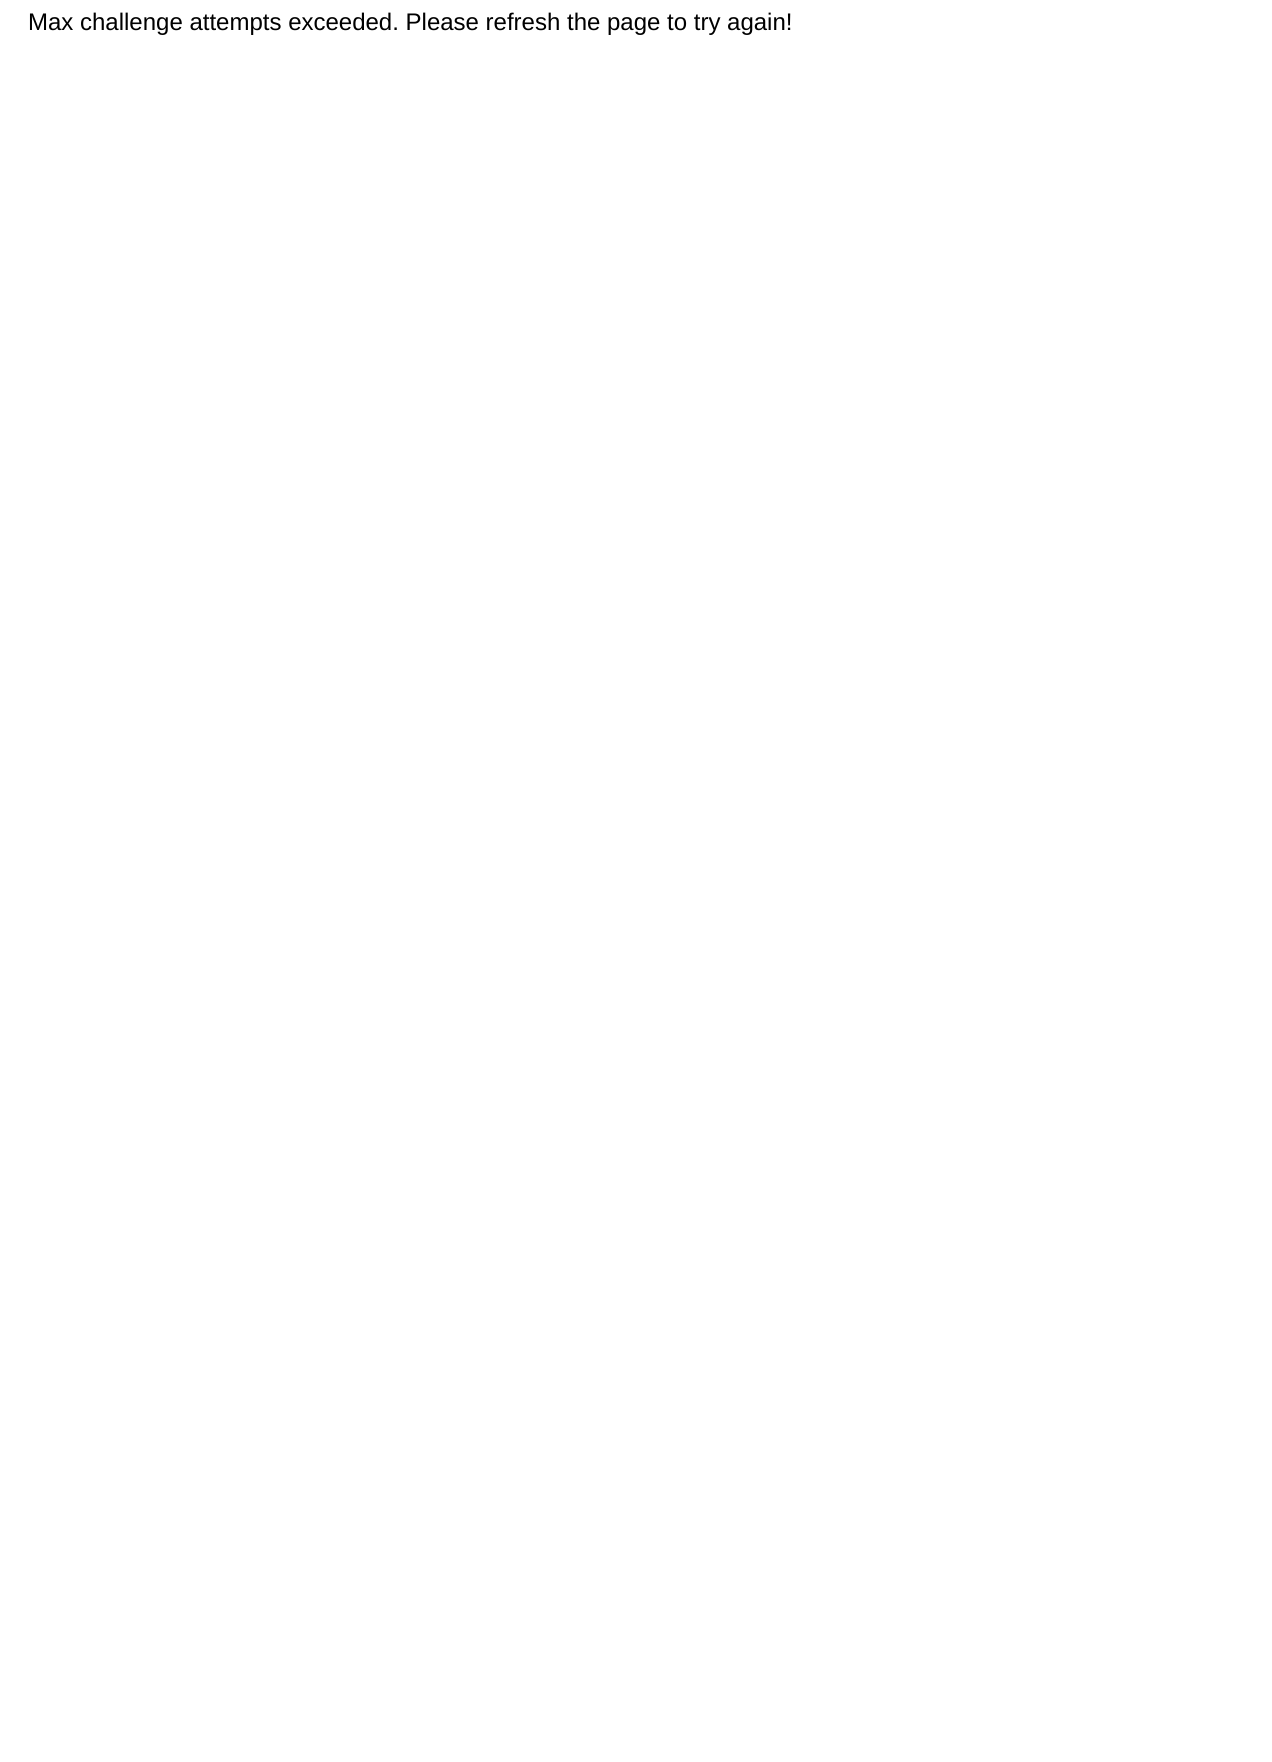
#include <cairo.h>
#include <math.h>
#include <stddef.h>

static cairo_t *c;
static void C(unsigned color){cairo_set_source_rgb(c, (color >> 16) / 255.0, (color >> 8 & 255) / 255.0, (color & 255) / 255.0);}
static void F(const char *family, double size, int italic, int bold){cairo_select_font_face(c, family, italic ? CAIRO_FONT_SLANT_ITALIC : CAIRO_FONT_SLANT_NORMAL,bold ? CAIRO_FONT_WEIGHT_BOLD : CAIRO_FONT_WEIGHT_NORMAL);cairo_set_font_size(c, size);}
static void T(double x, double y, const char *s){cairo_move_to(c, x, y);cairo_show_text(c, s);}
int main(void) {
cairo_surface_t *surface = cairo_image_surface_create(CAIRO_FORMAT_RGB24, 1272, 1762);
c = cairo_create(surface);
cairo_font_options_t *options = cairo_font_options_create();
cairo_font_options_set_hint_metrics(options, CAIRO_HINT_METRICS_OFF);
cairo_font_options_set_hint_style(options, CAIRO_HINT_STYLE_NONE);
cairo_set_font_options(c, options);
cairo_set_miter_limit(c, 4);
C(0xffffff);
cairo_paint(c);
F("Liberation Sans",24,0,0);
C(0x000000);
T(28,30,"Max challenge attempts exceeded. Please refresh the page to try again!");
cairo_surface_write_to_png(surface, "o.png");
cairo_font_options_destroy(options);
cairo_destroy(c);
cairo_surface_destroy(surface);
return 0;
}
